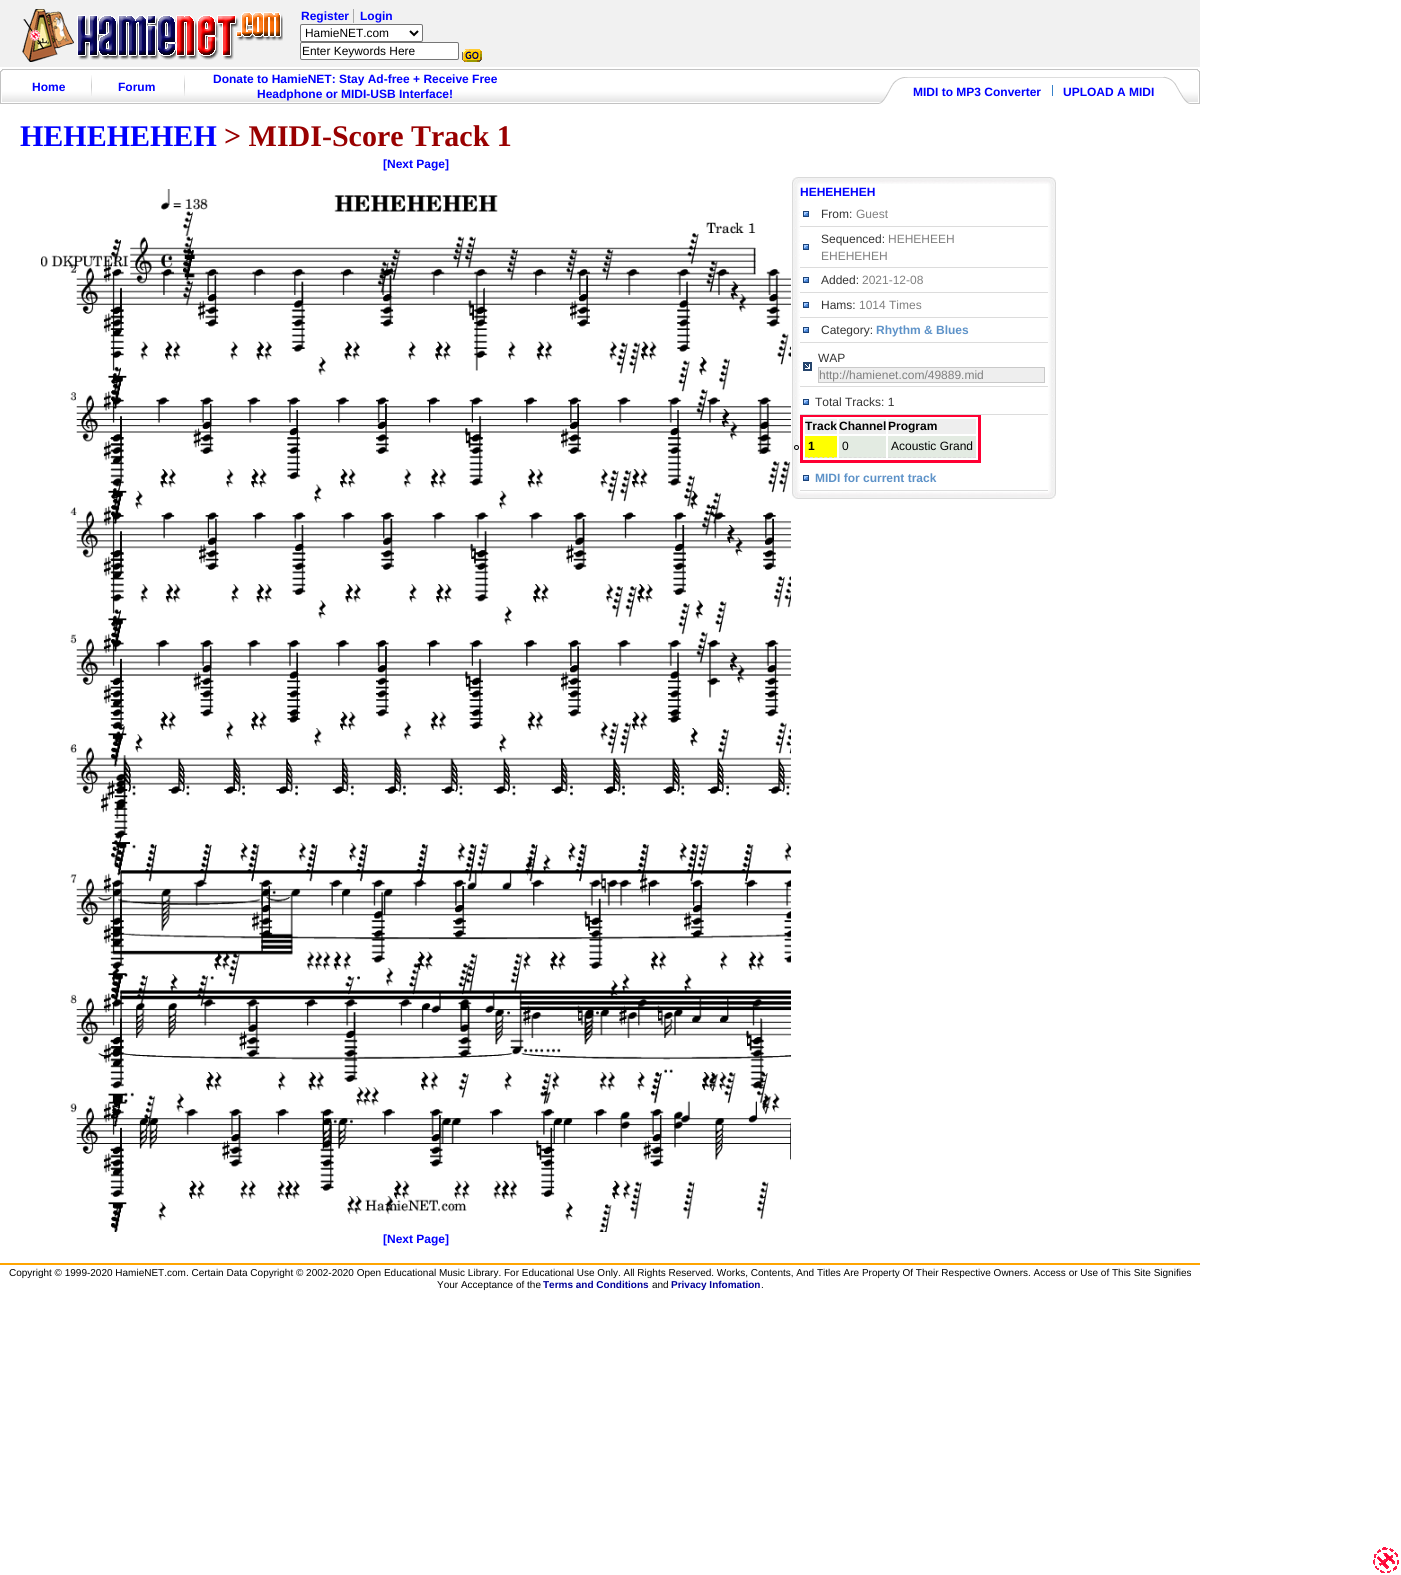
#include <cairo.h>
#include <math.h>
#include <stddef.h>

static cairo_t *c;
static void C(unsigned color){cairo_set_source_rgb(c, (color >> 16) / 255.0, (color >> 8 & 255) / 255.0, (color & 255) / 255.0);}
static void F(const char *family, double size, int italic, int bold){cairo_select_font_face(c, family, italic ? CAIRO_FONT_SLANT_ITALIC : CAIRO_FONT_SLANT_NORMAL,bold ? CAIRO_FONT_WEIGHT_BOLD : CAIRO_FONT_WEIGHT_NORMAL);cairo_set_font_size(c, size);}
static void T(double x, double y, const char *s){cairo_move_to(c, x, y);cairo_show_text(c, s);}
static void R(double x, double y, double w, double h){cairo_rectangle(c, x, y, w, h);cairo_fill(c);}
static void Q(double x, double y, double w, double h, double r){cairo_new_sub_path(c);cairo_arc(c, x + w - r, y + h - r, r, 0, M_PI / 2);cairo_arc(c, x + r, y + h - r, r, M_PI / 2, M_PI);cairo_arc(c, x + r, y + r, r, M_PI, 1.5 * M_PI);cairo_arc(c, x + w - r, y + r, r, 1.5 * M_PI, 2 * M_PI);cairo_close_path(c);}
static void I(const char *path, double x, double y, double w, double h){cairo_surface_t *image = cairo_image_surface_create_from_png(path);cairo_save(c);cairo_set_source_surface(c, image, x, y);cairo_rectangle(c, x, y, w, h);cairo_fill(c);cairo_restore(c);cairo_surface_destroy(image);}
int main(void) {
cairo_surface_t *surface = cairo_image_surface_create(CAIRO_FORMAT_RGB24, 1401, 1575);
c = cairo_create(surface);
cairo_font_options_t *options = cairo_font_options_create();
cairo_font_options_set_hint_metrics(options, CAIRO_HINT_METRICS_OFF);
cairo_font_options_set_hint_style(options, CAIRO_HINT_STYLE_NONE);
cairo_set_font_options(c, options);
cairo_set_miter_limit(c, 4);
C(0xffffff);
cairo_paint(c);
I("1.png",1373,1547,26,26);
C(0xf1f1f1);
R(0,0,1200,67);
I("2.png",22,9,261,53);
F("Liberation Sans",12,0,1);
C(0x0000ff);
T(301,20,"Register");
T(360,20,"Login");
C(0xaaaaaa);
R(353,9,1,14);
C(0xffffff);
Q(300.5,24.5,122,17,1.5);
cairo_fill_preserve(c);
C(0x767676);
cairo_set_line_width(c,1);
cairo_stroke(c);
cairo_new_path(c);
cairo_move_to(c,410,31);
cairo_line_to(c,414,35);
cairo_line_to(c,418,31);
C(0x000000);
cairo_set_line_width(c,2);
cairo_stroke(c);
F("Liberation Sans",11.9,0,0);
T(305,37,"HamieNET.com");
C(0xffffff);
Q(300.5,42.5,158,17,1.5);
cairo_fill_preserve(c);
C(0x767676);
cairo_set_line_width(c,1);
cairo_stroke(c);
C(0x000000);
T(302,55,"Enter Keywords Here");
I("3.png",462,49,20,13);
I("4.png",0,67,1200,37);
I("5.png",0,69,3,34);
F("Liberation Sans",12,0,1);
C(0x0000ff);
T(32,91,"Home");
I("6.png",91,75,1,21);
T(118,91,"Forum");
I("6.png",184,75,1,21);
T(213,83,"Donate to HamieNET: Stay Ad-free + Receive Free");
T(257,98,"Headphone or MIDI-USB Interface!");
I("7.png",879,76,310,28);
T(913,96,"MIDI to MP3 Converter");
C(0x3681c9);
R(1052,85,1,11);
C(0x0000ff);
T(1063,96,"UPLOAD A MIDI");
I("8.png",1189,69,11,35);
F("Liberation Serif",30,0,1);
T(20,146,"HEHEHEHEH");
C(0x990000);
T(224,146,"> MIDI-Score Track 1");
F("Liberation Sans",12,0,1);
C(0x0000ff);
T(383,168,"[Next Page]");
I("9.png",41,186,750,1046);
T(383,1243,"[Next Page]");
I("10.png",792,177,8,8);
I("11.png",800,177,248,7);
I("12.png",1048,177,8,8);
I("13.png",792,185,8,306);
T(800,196,"HEHEHEHEH");
I("14.png",803,211,6,6);
C(0xdcdcdc);
R(800,226,249,1);
F("Liberation Sans",12,0,0);
C(0x333333);
T(821,218,"From:");
C(0x7f7f7f);
T(856,218,"Guest");
I("14.png",803,244,6,6);
C(0xdcdcdc);
R(800,267,249,1);
C(0x333333);
T(821,243,"Sequenced:");
C(0x7f7f7f);
T(888,243,"HEHEHEEH");
T(821,260,"EHEHEHEH");
I("14.png",803,277,6,6);
C(0xdcdcdc);
R(800,292,249,1);
C(0x333333);
T(821,284,"Added:");
C(0x7f7f7f);
T(862,284,"2021-12-08");
I("14.png",803,302,6,6);
C(0xdcdcdc);
R(800,317,249,1);
C(0x333333);
T(821,309,"Hams:");
C(0x7f7f7f);
T(859,309,"1014 Times");
I("14.png",803,327,6,6);
C(0xdcdcdc);
R(800,342,249,1);
C(0x333333);
T(821,334,"Category:");
F("Liberation Sans",12,0,1);
C(0x5d92c8);
T(876,334,"Rhythm & Blues");
I("15.png",803,362,9,9);
C(0xdcdcdc);
R(800,386,249,1);
F("Liberation Sans",12,0,0);
C(0x333333);
T(818,362,"WAP");
C(0xeeeeee);
cairo_rectangle(c,818.5,367.5,226,15);
cairo_fill_preserve(c);
C(0xc9c9c9);
cairo_stroke(c);
C(0x7f7f7f);
T(819,379,"http://hamienet.com/49889.mid");
I("14.png",803,399,6,6);
C(0xdcdcdc);
R(800,414,249,1);
C(0x333333);
T(815,406,"Total Tracks: 1");
C(0xff0033);
R(800,415,181,2);
R(978,415,3,48);
R(800,460,181,3);
R(800,415,3,48);
C(0xeeeeee);
R(805,419,32,15);
F("Liberation Sans",12,0,1);
C(0x000000);
T(805,430,"Track");
C(0xeeeeee);
R(839,419,47,15);
C(0x000000);
T(839,430,"Channel");
C(0xeeeeee);
R(888,419,88,15);
C(0x000000);
T(888,430,"Program");
C(0xffff00);
R(805,436,32,22);
cairo_new_path(c);
cairo_move_to(c,805,457.5);
cairo_line_to(c,837,457.5);
C(0xdcdcdc);
cairo_set_dash(c,(double[]){3,1.83},2,0);
cairo_stroke(c);
cairo_arc(c,796.5,447.5,2,0,2 * M_PI);
C(0x000000);
cairo_set_dash(c,NULL,0,0);
cairo_stroke(c);
T(808,450,"1");
C(0xe3ebe2);
R(839,436,47,22);
cairo_new_path(c);
cairo_move_to(c,839,457.5);
cairo_line_to(c,886,457.5);
C(0xdcdcdc);
cairo_set_dash(c,(double[]){3,1.89},2,0);
cairo_stroke(c);
F("Liberation Sans",12,0,0);
C(0x000000);
T(842,450,"0");
C(0xe3ebe2);
R(888,436,88,22);
cairo_new_path(c);
cairo_move_to(c,888,457.5);
cairo_line_to(c,976,457.5);
C(0xdcdcdc);
cairo_set_dash(c,(double[]){3,2},2,0);
cairo_stroke(c);
C(0x000000);
T(891,450,"Acoustic Grand");
I("14.png",803,475,6,6);
C(0xdcdcdc);
R(800,490,249,1);
F("Liberation Sans",12,0,1);
C(0x5d92c8);
T(815,482,"MIDI for current track");
I("16.png",1048,185,8,306);
I("17.png",792,491,8,8);
I("18.png",800,492,248,7);
I("19.png",1048,491,8,8);
C(0xffa500);
R(0,1263,1200,2);
F("Liberation Sans",10,0,0);
C(0x000000);
T(9,1276,"Copyright © 1999-2020 HamieNET.com. Certain Data Copyright © 2002-2020 Open Educational Music Library. For Educational Use Only. All Rights Reserved. Works, Contents, And Titles Are Property Of Their Respective Owners. Access or Use of This Site Signifies");
T(437,1288,"Your Acceptance of the");
F("Liberation Sans",10,0,1);
C(0x000099);
T(543,1288,"Terms and Conditions");
F("Liberation Sans",10,0,0);
C(0x000000);
T(652,1288,"and");
F("Liberation Sans",10,0,1);
C(0x000099);
T(671,1288,"Privacy Infomation");
F("Liberation Sans",10,0,0);
C(0x000000);
T(761,1288,".");
cairo_surface_write_to_png(surface, "o.png");
cairo_font_options_destroy(options);
cairo_destroy(c);
cairo_surface_destroy(surface);
return 0;
}
